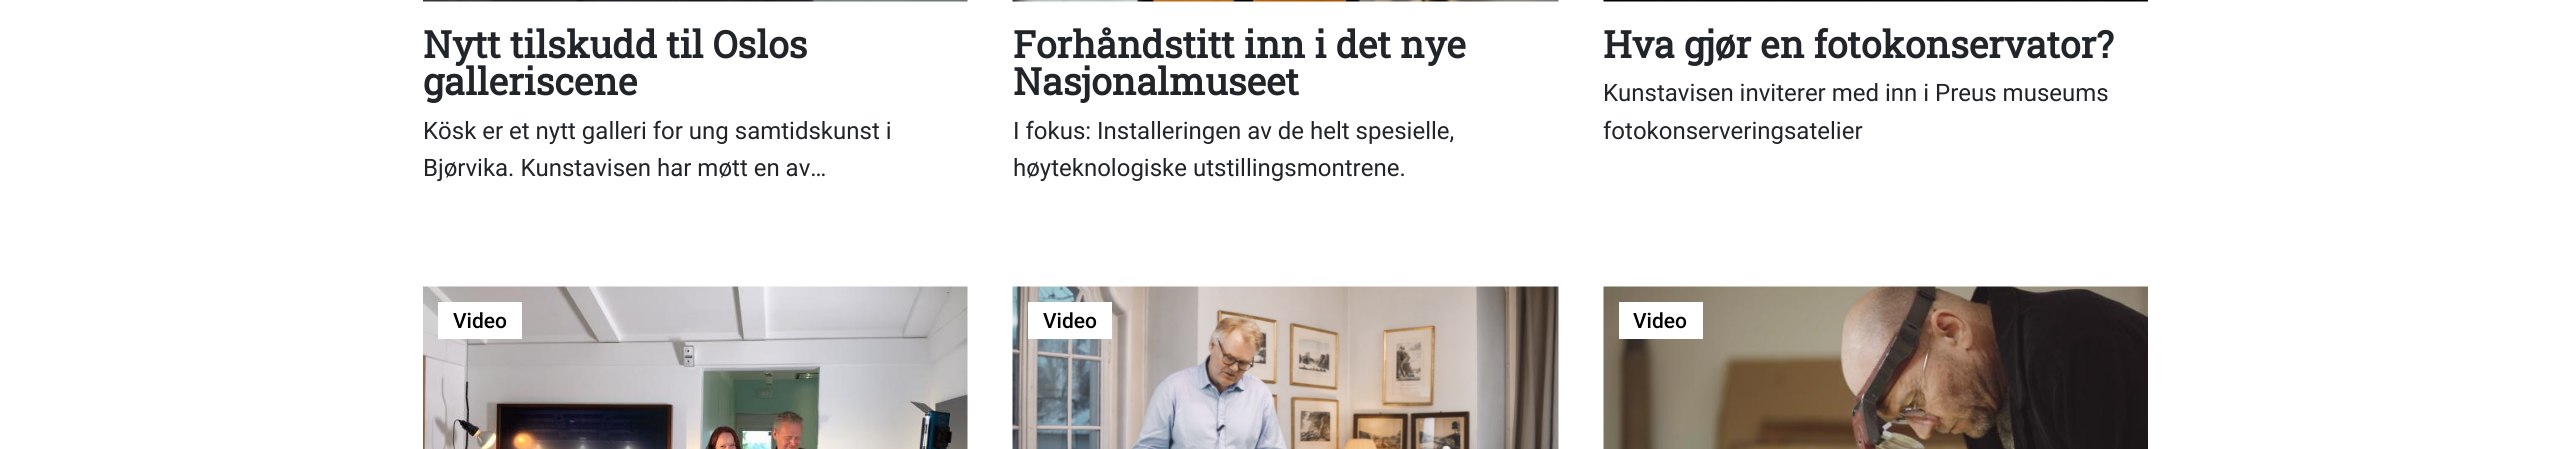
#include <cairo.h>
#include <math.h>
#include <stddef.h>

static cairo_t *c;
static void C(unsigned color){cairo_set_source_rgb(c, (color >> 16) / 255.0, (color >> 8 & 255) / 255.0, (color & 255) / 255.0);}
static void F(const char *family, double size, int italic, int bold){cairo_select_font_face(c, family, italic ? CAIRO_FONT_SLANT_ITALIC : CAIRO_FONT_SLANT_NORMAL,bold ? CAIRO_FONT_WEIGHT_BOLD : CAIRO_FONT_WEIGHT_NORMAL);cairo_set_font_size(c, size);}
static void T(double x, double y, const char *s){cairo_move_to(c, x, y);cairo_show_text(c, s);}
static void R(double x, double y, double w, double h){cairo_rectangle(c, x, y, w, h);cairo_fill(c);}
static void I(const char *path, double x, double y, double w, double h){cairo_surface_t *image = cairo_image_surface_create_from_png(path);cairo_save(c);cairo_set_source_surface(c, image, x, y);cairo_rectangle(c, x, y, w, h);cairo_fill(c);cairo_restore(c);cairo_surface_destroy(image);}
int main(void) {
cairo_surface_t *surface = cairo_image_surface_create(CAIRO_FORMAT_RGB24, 2571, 449);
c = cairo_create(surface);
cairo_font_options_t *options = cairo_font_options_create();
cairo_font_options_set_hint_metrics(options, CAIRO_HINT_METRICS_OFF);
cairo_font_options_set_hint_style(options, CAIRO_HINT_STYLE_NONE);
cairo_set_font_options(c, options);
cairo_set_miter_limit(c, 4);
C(0xffffff);
cairo_paint(c);
I("1.png",423,0,545,2);
F("Roboto Slab",37.5,0,1);
C(0x212529);
T(423,58,"Nytt tilskudd til Oslos");
T(423,95,"galleriscene");
F("Roboto",24,0,0);
T(423,139,"Kösk er et nytt galleri for ung samtidskunst i");
T(423,176,"Bjørvika. Kunstavisen har møtt en av…");
I("2.png",1012,0,547,2);
F("Roboto Slab",37.5,0,1);
T(1013,58,"Forhåndstitt inn i det nye");
T(1013,95,"Nasjonalmuseet");
F("Roboto",24,0,0);
T(1013,139,"I fokus: Installeringen av de helt spesielle,");
T(1013,176,"høyteknologiske utstillingsmontrene.");
I("3.png",1603,0,545,2);
F("Roboto Slab",37.5,0,1);
T(1603,58,"Hva gjør en fotokonservator?");
F("Roboto",24,0,0);
T(1603,101,"Kunstavisen inviterer med inn i Preus museums");
T(1603,139,"fotokonserveringsatelier");
I("4.png",423,286,545,163);
C(0xffffff);
R(438,302,84,37);
F("Roboto Medium",21,0,0);
C(0x000000);
T(453,328,"Video");
I("5.png",1012,286,547,163);
C(0xffffff);
R(1028,302,84,37);
C(0x000000);
T(1043,328,"Video");
I("6.png",1603,286,545,163);
C(0xffffff);
R(1619,302,84,37);
C(0x000000);
T(1633,328,"Video");
cairo_surface_write_to_png(surface, "o.png");
cairo_font_options_destroy(options);
cairo_destroy(c);
cairo_surface_destroy(surface);
return 0;
}
